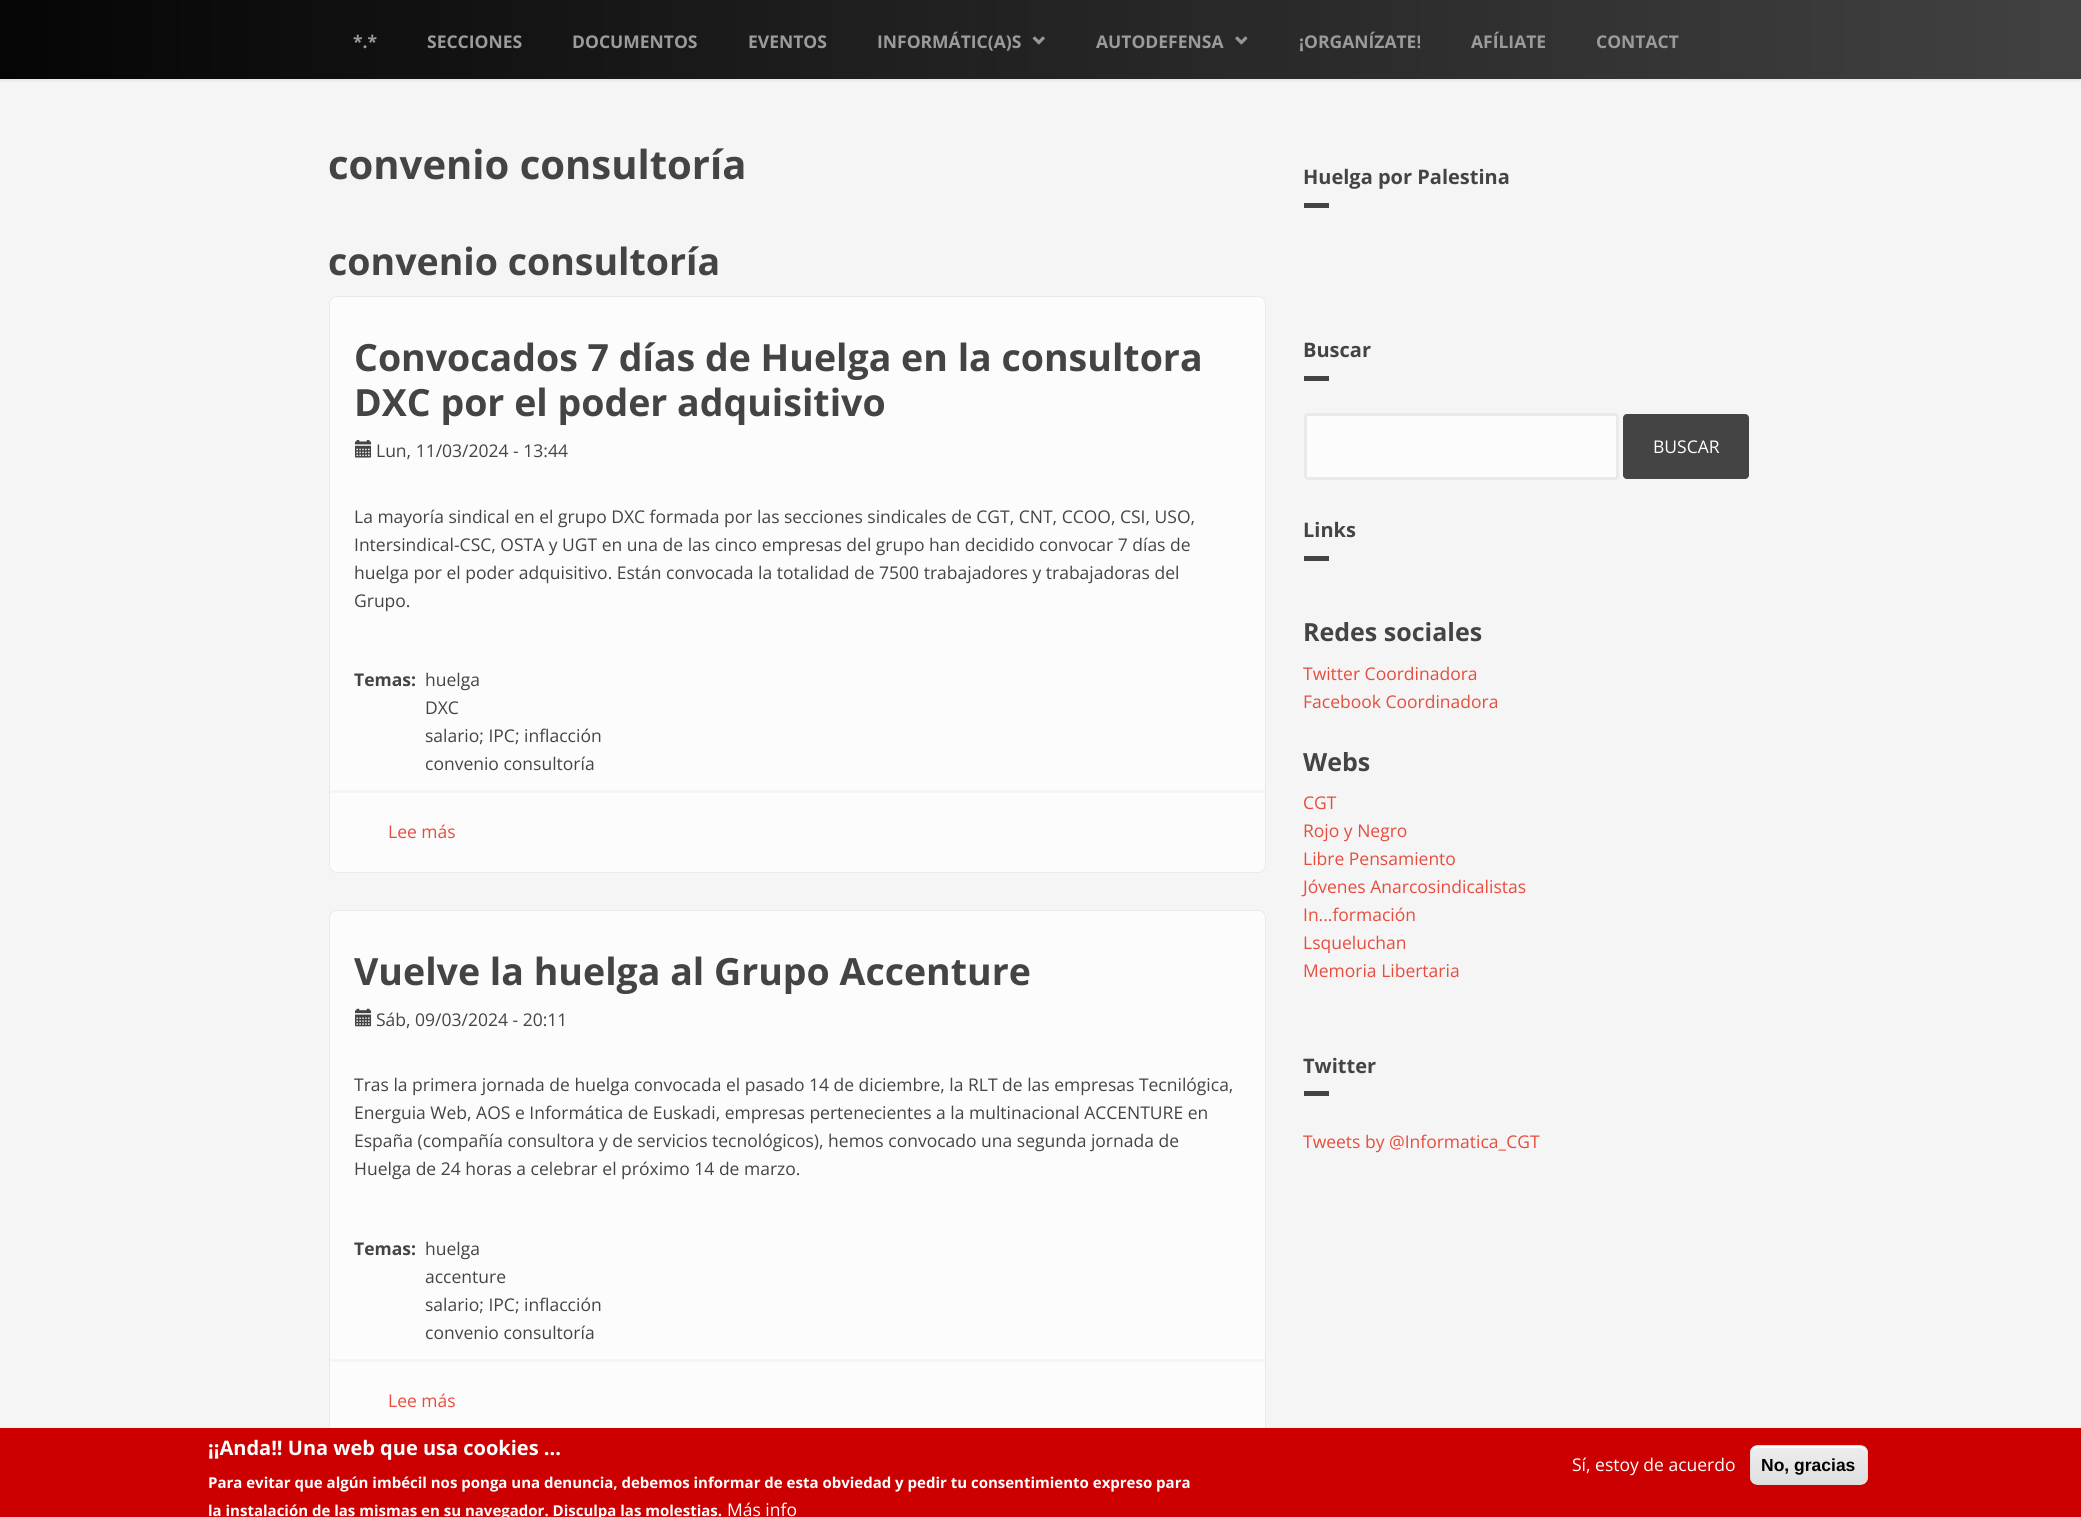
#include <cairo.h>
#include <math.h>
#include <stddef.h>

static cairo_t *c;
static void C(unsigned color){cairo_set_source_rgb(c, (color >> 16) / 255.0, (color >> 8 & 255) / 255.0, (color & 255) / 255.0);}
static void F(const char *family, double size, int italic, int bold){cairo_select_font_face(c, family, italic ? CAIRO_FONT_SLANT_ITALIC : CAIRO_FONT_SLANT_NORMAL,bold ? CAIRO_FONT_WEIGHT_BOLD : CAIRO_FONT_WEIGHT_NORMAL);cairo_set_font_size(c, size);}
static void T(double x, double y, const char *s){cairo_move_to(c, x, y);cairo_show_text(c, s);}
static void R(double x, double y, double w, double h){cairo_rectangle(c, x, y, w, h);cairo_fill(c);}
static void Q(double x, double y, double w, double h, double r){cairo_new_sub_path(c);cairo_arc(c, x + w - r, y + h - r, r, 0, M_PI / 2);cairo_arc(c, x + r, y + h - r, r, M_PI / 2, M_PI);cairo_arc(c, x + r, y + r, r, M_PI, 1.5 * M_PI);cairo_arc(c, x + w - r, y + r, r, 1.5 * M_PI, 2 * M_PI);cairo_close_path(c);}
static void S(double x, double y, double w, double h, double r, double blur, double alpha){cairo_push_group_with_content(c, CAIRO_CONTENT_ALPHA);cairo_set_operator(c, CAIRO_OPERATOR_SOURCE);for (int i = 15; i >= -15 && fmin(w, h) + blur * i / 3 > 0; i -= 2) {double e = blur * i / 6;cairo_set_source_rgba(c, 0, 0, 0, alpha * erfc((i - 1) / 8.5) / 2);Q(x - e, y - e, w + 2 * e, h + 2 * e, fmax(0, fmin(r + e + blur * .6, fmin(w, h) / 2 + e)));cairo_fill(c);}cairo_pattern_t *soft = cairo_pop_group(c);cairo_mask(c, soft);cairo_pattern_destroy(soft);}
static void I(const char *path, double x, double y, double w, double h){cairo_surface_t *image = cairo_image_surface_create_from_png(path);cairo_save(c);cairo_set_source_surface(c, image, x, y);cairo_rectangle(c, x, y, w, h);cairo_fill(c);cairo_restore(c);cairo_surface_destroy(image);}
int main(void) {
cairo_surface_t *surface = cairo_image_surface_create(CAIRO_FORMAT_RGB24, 2081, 1517);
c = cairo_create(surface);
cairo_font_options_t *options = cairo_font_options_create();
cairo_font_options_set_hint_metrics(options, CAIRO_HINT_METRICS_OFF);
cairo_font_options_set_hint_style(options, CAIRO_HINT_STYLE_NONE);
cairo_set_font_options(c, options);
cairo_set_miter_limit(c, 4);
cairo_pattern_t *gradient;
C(0xf5f5f5);
cairo_paint(c);
cairo_save(c);
cairo_rectangle(c,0,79,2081,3);
cairo_clip(c);
C(0x050505);
S(0,3,2081,78,0,2.5,.07);
cairo_restore(c);
gradient = cairo_pattern_create_linear(0,39,2081,39);
cairo_pattern_add_color_stop_rgba(gradient,0,0.02,0.02,0.02,1);
cairo_pattern_add_color_stop_rgba(gradient,1,0.02,0.02,0.02,.75);
cairo_set_source(c,gradient);
cairo_pattern_destroy(gradient);
R(0,0,2081,79);
F("Open Sans",17.5,0,1);
C(0x9b9b9b);
T(353,48,"*.*");
T(427,48,"SECCIONES");
T(572,48,"DOCUMENTOS");
T(748,48,"EVENTOS");
T(877,48,"INFORMÁTIC(A)S");
I("1.png",1032,36,13,9);
T(1096,48,"AUTODEFENSA");
I("2.png",1235,36,13,9);
T(1299,48,"¡ORGANÍZATE!");
T(1471,48,"AFÍLIATE");
T(1596,48,"CONTACT");
F("Open Sans",40,0,1);
C(0x444444);
T(328,179,"convenio consultoría");
F("Open Sans",37.5,0,1);
T(328,275,"convenio consultoría");
C(0xfcfcfc);
Q(329.5,296.5,936,576,7.5);
cairo_fill_preserve(c);
C(0xeaeaea);
cairo_set_line_width(c,1);
cairo_stroke(c);
C(0x444444);
T(354,371,"Convocados 7 días de Huelga en la consultora");
T(354,416,"DXC por el poder adquisitivo");
I("3.png",355,440,17,18);
F("Open Sans",17.5,0,0);
T(376,457,"Lun, 11/03/2024 - 13:44");
T(354,523,"La mayoría sindical en el grupo DXC formada por las secciones sindicales de CGT, CNT, CCOO, CSI, USO,");
T(354,551,"Intersindical-CSC, OSTA y UGT en una de las cinco empresas del grupo han decidido convocar 7 días de");
T(354,579,"huelga por el poder adquisitivo. Están convocada la totalidad de 7500 trabajadores y trabajadoras del");
T(354,607,"Grupo.");
F("Open Sans",17.5,0,1);
T(354,686,"Temas:");
F("Open Sans",17.5,0,0);
T(425,686,"huelga");
T(425,714,"DXC");
T(425,742,"salario; IPC; inflacción");
T(425,770,"convenio consultoría");
C(0xf5f5f5);
R(330,790,935,3);
C(0xe74c3c);
T(388,838,"Lee más");
C(0xfcfcfc);
Q(329.5,910.5,936,530,7.5);
cairo_fill_preserve(c);
C(0xeaeaea);
cairo_stroke(c);
F("Open Sans",37.5,0,1);
C(0x444444);
T(354,985,"Vuelve la huelga al Grupo Accenture");
I("4.png",355,1008,17,19);
F("Open Sans",17.5,0,0);
T(376,1026,"Sáb, 09/03/2024 - 20:11");
T(354,1091,"Tras la primera jornada de huelga convocada el pasado 14 de diciembre, la RLT de las empresas Tecnilógica,");
T(354,1119,"Energuia Web, AOS e Informática de Euskadi, empresas pertenecientes a la multinacional ACCENTURE en");
T(354,1147,"España (compañía consultora y de servicios tecnológicos), hemos convocado una segunda jornada de");
T(354,1175,"Huelga de 24 horas a celebrar el próximo 14 de marzo.");
F("Open Sans",17.5,0,1);
T(354,1255,"Temas:");
F("Open Sans",17.5,0,0);
T(425,1255,"huelga");
T(425,1283,"accenture");
T(425,1311,"salario; IPC; inflacción");
T(425,1339,"convenio consultoría");
C(0xf5f5f5);
R(330,1359,935,3);
C(0xe74c3c);
T(388,1407,"Lee más");
F("Open Sans",20,0,1);
C(0x444444);
T(1303,184,"Huelga por Palestina");
R(1304,203,25,5);
T(1303,357,"Buscar");
R(1304,376,25,5);
C(0xfcfcfc);
Q(1305.5,414.5,312,64,2.5);
cairo_fill_preserve(c);
C(0xeaeaea);
cairo_set_line_width(c,3);
cairo_stroke(c);
C(0x444444);
Q(1623,414,126,65,4);
cairo_fill(c);
F("Open Sans",17.5,0,0);
C(0xffffff);
T(1653,453,"BUSCAR");
F("Open Sans",20,0,1);
C(0x444444);
T(1303,537,"Links");
R(1304,556,25,5);
F("Open Sans",25,0,1);
T(1303,641,"Redes sociales");
F("Open Sans",17.5,0,0);
C(0xe74c3c);
T(1303,680,"Twitter Coordinadora");
T(1303,708,"Facebook Coordinadora");
F("Open Sans",25,0,1);
C(0x444444);
T(1303,771,"Webs");
F("Open Sans",17.5,0,0);
C(0xe74c3c);
T(1303,809,"CGT");
T(1303,837,"Rojo y Negro");
T(1303,865,"Libre Pensamiento");
T(1303,893,"Jóvenes Anarcosindicalistas");
T(1303,921,"In...formación");
T(1303,949,"Lsqueluchan");
T(1303,977,"Memoria Libertaria");
F("Open Sans",20,0,1);
C(0x444444);
T(1303,1073,"Twitter");
R(1304,1091,25,5);
F("Open Sans",17.5,0,0);
C(0xe74c3c);
T(1303,1148,"Tweets by @Informatica_CGT");
C(0xcc0000);
R(0,1428,2081,89);
F("Open Sans",20,0,1);
C(0xffffff);
T(208,1455,"¡¡Anda!! Una web que usa cookies ...");
F("Open Sans",15,0,1);
T(208,1488,"Para evitar que algún imbécil nos ponga una denuncia, debemos informar de esta obviedad y pedir tu consentimiento expreso para");
T(208,1516,"la instalación de las mismas en su navegador. Disculpa las molestias.");
F("Open Sans",17.5,0,0);
T(727,1516,"Más info");
T(1572,1471,"Sí, estoy de acuerdo");
cairo_save(c);
Q(1750,1445,118,40,8);
cairo_clip(c);
gradient = cairo_pattern_create_linear(1809,1446,1809,1484);
cairo_pattern_add_color_stop_rgba(gradient,.05,0.929,0.929,0.929,1);
cairo_pattern_add_color_stop_rgba(gradient,1,0.875,0.875,0.875,1);
cairo_set_source(c,gradient);
cairo_pattern_destroy(gradient);
R(1750,1446,118,38);
cairo_restore(c);
cairo_new_path(c);
cairo_move_to(c,1758,1448);
cairo_line_to(c,1860,1448);
cairo_curve_to(c,1863,1448,1866,1450,1866,1454);
cairo_line_to(c,1866,1452);
cairo_curve_to(c,1866,1449,1863,1446,1860,1446);
cairo_line_to(c,1757,1446);
cairo_curve_to(c,1754,1446,1751,1449,1751,1452);
cairo_line_to(c,1751,1454);
cairo_curve_to(c,1751,1450,1754,1448,1758,1448);
cairo_close_path(c);
cairo_fill(c);
Q(1750.5,1445.5,117,39,7.5);
C(0xdcdcdc);
cairo_set_line_width(c,1);
cairo_stroke(c);
F("Liberation Sans",17.5,0,1);
C(0x000000);
T(1761,1471,"No, gracias");
cairo_surface_write_to_png(surface, "o.png");
cairo_font_options_destroy(options);
cairo_destroy(c);
cairo_surface_destroy(surface);
return 0;
}
